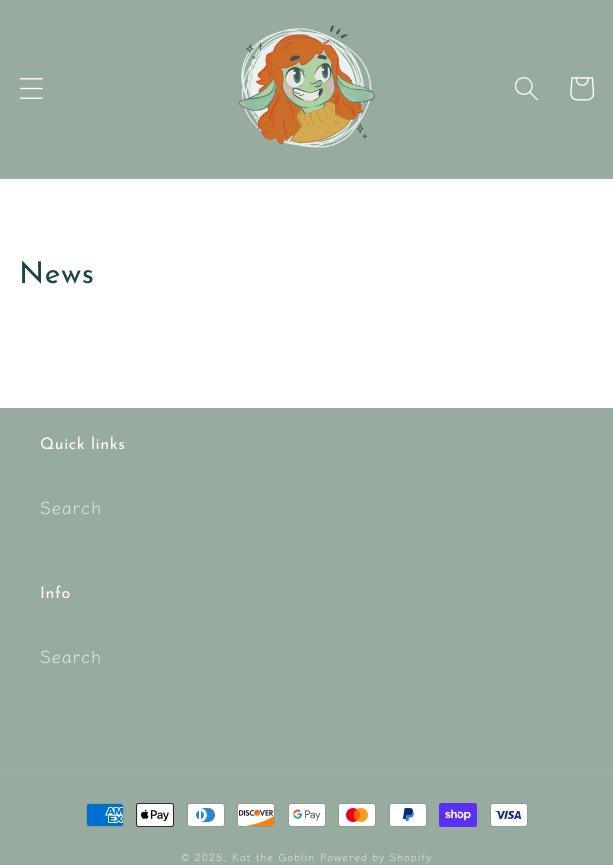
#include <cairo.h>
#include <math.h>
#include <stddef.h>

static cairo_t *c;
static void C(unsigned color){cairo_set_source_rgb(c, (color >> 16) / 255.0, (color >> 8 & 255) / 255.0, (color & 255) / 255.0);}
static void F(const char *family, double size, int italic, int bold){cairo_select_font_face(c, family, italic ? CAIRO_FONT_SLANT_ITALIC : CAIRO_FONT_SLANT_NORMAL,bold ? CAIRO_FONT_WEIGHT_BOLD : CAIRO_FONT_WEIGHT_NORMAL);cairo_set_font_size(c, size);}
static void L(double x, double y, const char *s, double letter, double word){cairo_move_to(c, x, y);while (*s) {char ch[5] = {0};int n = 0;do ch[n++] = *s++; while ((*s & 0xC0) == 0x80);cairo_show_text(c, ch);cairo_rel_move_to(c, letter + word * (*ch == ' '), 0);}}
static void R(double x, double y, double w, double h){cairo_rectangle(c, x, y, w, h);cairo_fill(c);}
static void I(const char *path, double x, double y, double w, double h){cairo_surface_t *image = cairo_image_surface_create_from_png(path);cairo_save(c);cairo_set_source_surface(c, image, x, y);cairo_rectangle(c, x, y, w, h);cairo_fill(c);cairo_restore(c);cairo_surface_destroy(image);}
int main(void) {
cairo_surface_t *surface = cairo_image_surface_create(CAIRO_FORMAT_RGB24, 613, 865);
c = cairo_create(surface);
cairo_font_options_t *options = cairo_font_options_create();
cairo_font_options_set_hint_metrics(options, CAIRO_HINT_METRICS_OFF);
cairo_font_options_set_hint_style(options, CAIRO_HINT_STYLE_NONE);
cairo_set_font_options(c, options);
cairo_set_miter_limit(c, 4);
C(0xffffff);
cairo_paint(c);
C(0x97ab9f);
R(0,0,613,178);
C(0x9fb1a6);
R(0,178,613,1);
I("1.png",19,78,24,21);
I("2.png",238,25,137,123);
I("3.png",514,77,24,24);
I("4.png",570,77,25,24);
F("Josefin Sans",30,0,0);
C(0x194648);
L(19,283,"News",.6,0);
C(0x97ab9f);
R(0,408,613,457);
F("Josefin Sans",16,0,0);
C(0xfffbf4);
L(40,449,"Quick links",.6,0);
F("Klee One",17.5,0,0);
C(0xe5e7df);
L(40,514,"Search",.75,0);
F("Josefin Sans",16,0,0);
C(0xfffbf4);
L(40,598,"Info",.6,0);
F("Klee One",17.5,0,0);
C(0xe5e7df);
L(40,663,"Search",.75,0);
C(0x9fb1a6);
R(0,771,613,1);
I("5.png",86,803,38,24);
I("6.png",136,803,38,24);
I("7.png",187,803,38,24);
I("8.png",237,803,38,24);
I("9.png",288,803,38,24);
I("10.png",338,803,38,24);
I("11.png",389,803,38,24);
I("12.png",439,803,38,24);
I("13.png",490,803,38,24);
F("Klee One",10.4,0,0);
C(0xe5e7df);
L(181,861,"© 2025, Kat the Goblin",.9,0);
L(320,861,"Powered by Shopify",.9,0);
cairo_surface_write_to_png(surface, "o.png");
cairo_font_options_destroy(options);
cairo_destroy(c);
cairo_surface_destroy(surface);
return 0;
}
